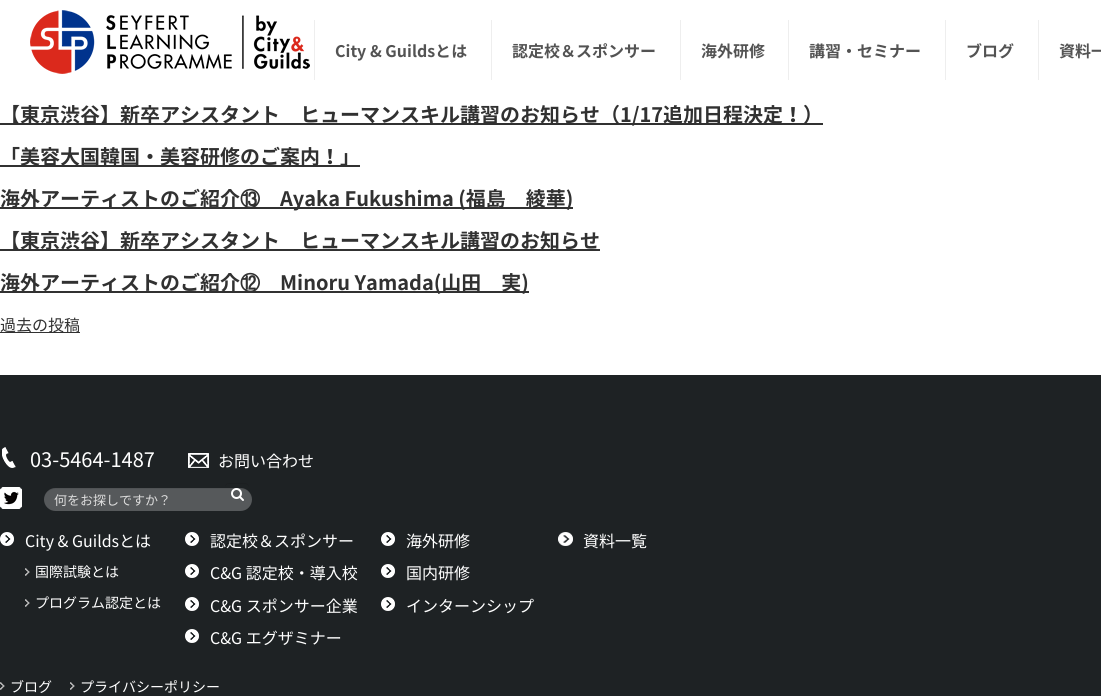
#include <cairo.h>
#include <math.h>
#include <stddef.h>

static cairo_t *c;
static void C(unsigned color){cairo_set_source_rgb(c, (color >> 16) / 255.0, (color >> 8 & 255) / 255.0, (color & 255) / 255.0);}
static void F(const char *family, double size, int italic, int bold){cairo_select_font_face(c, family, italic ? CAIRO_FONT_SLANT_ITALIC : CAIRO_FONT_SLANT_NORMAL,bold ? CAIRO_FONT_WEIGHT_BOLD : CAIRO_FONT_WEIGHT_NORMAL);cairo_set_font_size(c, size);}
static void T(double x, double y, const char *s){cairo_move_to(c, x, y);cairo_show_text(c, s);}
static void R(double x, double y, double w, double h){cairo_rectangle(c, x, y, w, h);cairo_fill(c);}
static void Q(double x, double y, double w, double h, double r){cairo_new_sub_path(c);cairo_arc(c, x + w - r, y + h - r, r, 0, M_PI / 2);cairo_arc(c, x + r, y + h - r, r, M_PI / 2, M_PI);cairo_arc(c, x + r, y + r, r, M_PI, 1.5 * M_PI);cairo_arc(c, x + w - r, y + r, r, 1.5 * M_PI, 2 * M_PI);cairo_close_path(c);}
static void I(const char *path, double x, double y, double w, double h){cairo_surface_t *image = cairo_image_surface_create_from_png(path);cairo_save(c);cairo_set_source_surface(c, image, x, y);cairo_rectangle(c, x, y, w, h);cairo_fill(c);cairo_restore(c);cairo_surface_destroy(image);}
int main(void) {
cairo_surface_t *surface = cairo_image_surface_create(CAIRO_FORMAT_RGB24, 1101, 696);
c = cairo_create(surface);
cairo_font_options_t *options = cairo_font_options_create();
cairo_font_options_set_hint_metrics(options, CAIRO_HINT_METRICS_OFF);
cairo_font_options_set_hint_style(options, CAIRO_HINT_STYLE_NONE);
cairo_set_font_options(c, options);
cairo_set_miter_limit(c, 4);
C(0xffffff);
cairo_paint(c);
I("1.png",30,10,280,64);
C(0xeeeeee);
R(314,20,1,60);
F("Noto Sans JP",16,0,1);
C(0x535353);
T(335,57,"City & Guildsとは");
C(0xeeeeee);
R(491,20,1,60);
C(0x535353);
T(512,57,"認定校＆スポンサー");
C(0xeeeeee);
R(680,20,1,60);
C(0x535353);
T(701,57,"海外研修");
C(0xeeeeee);
R(788,20,1,60);
C(0x535353);
T(809,57,"講習・セミナー");
C(0xeeeeee);
R(945,20,1,60);
C(0x535353);
T(966,57,"ブログ");
C(0xeeeeee);
R(1038,20,1,60);
C(0x535353);
T(1059,57,"資料一");
C(0x313131);
R(0,123,823,2);
F("Noto Sans JP",20,0,1);
T(0,122,"【東京渋谷】新卒アシスタント　ヒューマンスキル講習のお知らせ（1/17追加日程決定！）");
R(0,165,360,2);
T(0,164,"「美容大国韓国・美容研修のご案内！」");
R(0,207,573,2);
T(0,206,"海外アーティストのご紹介");
F("WenQuanYi Zen Hei",20,0,1);
T(240,206,"⑬");
F("Noto Sans JP",20,0,1);
T(280,206,"Ayaka Fukushima (福島　綾華)");
R(0,249,600,2);
T(0,248,"【東京渋谷】新卒アシスタント　ヒューマンスキル講習のお知らせ");
R(0,291,529,2);
T(0,290,"海外アーティストのご紹介");
F("WenQuanYi Zen Hei",20,0,1);
T(240,290,"⑫");
F("Noto Sans JP",20,0,1);
T(280,290,"Minoru Yamada(山田　実)");
R(0,332,80,1);
F("Noto Sans JP",16,0,0);
T(0,331,"過去の投稿");
C(0x1e2224);
R(0,375,1101,321);
I("2.png",2,447,14,21);
F("Noto Sans CJK JP",20,0,0);
C(0xffffff);
T(30,467,"03-5464-1487");
I("3.png",188,453,21,15);
F("Noto Sans CJK JP",16,0,0);
T(218,467,"お問い合わせ");
I("4.png",0,487,22,22);
C(0x56595b);
Q(44,488,208,23,11.5);
cairo_fill(c);
cairo_set_source_rgba(c,0,0,0,0.07);
cairo_new_path(c);
cairo_move_to(c,56,489);
cairo_line_to(c,240,489);
cairo_curve_to(c,247,489,252,494,252,500);
cairo_curve_to(c,252,493,247,488,240,488);
cairo_line_to(c,56,488);
cairo_curve_to(c,49,488,44,493,44,500);
cairo_curve_to(c,44,494,49,489,56,489);
cairo_close_path(c);
cairo_fill(c);
F("Noto Sans CJK JP",13,0,0);
C(0xdddddd);
T(54,505,"何をお探しですか？");
I("5.png",231,488,13,13);
C(0x1c1f21);
cairo_new_path(c);
cairo_move_to(c,229,484);
cairo_line_to(c,242,484);
cairo_curve_to(c,247,484,248.5,485,249,487.5);
cairo_curve_to(c,249,483,246,483,242.5,483);
cairo_line_to(c,231.5,483);
cairo_curve_to(c,228.5,483,225,483,225,487);
cairo_curve_to(c,225.5,485.5,226.5,484,229,484);
cairo_close_path(c);
cairo_fill(c);
I("6.png",0,532,14,14);
F("Noto Sans CJK JP",16,0,0);
C(0xffffff);
T(25,547,"City & Guildsとは");
I("7.png",25,568,5,8);
F("Noto Sans CJK JP",14,0,0);
T(35,577,"国際試験とは");
I("7.png",25,599,5,8);
T(35,608,"プログラム認定とは");
I("6.png",185,532,14,14);
F("Noto Sans CJK JP",16,0,0);
T(210,547,"認定校＆スポンサー");
I("6.png",185,564,14,14);
T(210,579,"C&G 認定校・導入校");
I("6.png",185,597,14,14);
T(210,612,"C&G スポンサー企業");
I("6.png",185,629,14,14);
T(210,644,"C&G エグザミナー");
I("6.png",381,532,14,14);
T(406,547,"海外研修");
I("6.png",381,564,14,14);
T(406,579,"国内研修");
I("6.png",381,597,14,14);
T(406,612,"インターンシップ");
I("8.png",558,532,15,14);
T(583,547,"資料一覧");
I("7.png",0,682,5,8);
F("Noto Sans CJK JP",14,0,0);
T(10,692,"ブログ");
I("7.png",70,682,5,8);
T(80,692,"プライバシーポリシー");
cairo_surface_write_to_png(surface, "o.png");
cairo_font_options_destroy(options);
cairo_destroy(c);
cairo_surface_destroy(surface);
return 0;
}
